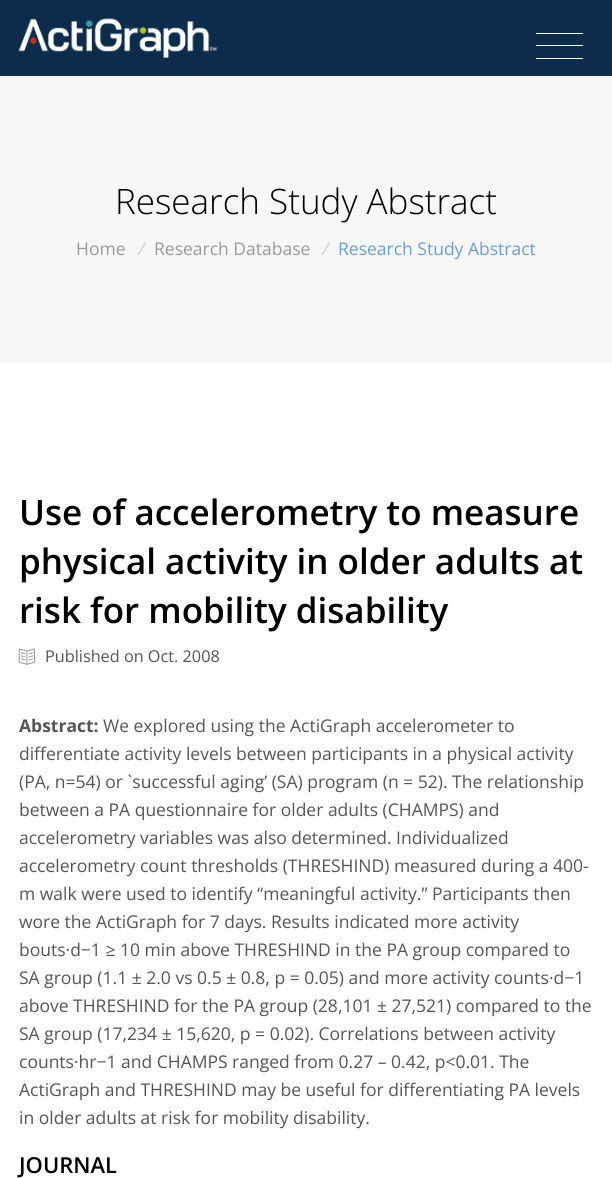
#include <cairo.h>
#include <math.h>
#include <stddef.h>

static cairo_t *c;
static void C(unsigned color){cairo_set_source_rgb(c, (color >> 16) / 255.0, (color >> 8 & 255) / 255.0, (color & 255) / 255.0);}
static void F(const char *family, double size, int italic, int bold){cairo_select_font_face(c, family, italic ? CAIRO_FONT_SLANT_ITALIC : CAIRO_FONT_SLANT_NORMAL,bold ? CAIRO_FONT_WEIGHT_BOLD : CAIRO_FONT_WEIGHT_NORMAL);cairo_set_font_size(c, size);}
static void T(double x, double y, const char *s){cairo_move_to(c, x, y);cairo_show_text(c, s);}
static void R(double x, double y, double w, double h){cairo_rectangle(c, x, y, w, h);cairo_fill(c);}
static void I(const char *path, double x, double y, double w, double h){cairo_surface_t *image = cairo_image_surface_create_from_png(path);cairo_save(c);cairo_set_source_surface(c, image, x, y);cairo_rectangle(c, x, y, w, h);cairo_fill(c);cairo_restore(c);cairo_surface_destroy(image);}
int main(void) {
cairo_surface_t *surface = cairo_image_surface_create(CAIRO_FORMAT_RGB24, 612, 1178);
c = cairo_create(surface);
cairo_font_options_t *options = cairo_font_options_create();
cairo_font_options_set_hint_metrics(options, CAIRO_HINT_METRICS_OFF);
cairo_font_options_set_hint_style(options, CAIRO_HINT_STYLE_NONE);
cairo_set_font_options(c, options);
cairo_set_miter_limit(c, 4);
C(0xffffff);
cairo_paint(c);
C(0x0b2c4a);
R(0,0,612,76);
I("1.png",18,18,199,40);
C(0xffffff);
R(536,33,47,1);
R(536,45,47,1);
R(536,58,47,1);
C(0xf7f7f7);
R(0,76,612,287);
F("Open Sans Light",35,0,0);
C(0x000000);
T(115,214,"Research Study Abstract");
F("Open Sans",17.5,0,0);
C(0x999999);
T(76,255,"Home");
F("Open Sans",17.5,1,0);
C(0xcccccc);
T(137,255,"/");
F("Open Sans",17.5,0,0);
C(0x999999);
T(154,255,"Research Database");
F("Open Sans",17.5,1,0);
C(0xcccccc);
T(321,255,"/");
F("Open Sans",17.5,0,0);
C(0x66a0d6);
T(338,255,"Research Study Abstract");
F("Open Sans SemiBold",35,0,0);
C(0x000000);
T(19,525,"Use of accelerometry to measure");
T(19,574,"physical activity in older adults at");
T(19,623,"risk for mobility disability");
I("2.png",18,648,17,17);
F("Open Sans",16.25,0,0);
C(0x555555);
T(45,662,"Published on Oct. 2008");
F("Open Sans",17.5,0,1);
T(19,732,"Abstract:");
F("Open Sans",17.5,0,0);
T(103,732,"We explored using the ActiGraph accelerometer to");
T(19,760,"differentiate activity levels between participants in a physical activity");
T(19,788,"(PA, n=54) or `successful aging’ (SA) program (n = 52). The relationship");
T(19,816,"between a PA questionnaire for older adults (CHAMPS) and");
T(19,844,"accelerometry variables was also determined. Individualized");
T(19,872,"accelerometry count thresholds (THRESHIND) measured during a 400-");
T(19,900,"m walk were used to identify “meaningful activity.” Participants then");
T(19,928,"wore the ActiGraph for 7 days. Results indicated more activity");
T(19,956,"bouts·d−1 ≥ 10 min above THRESHIND in the PA group compared to");
T(19,984,"SA group (1.1 ± 2.0 vs 0.5 ± 0.8, p = 0.05) and more activity counts·d−1");
T(19,1012,"above THRESHIND for the PA group (28,101 ± 27,521) compared to the");
T(19,1040,"SA group (17,234 ± 15,620, p = 0.02). Correlations between activity");
T(19,1068,"counts·hr−1 and CHAMPS ranged from 0.27 – 0.42, p<0.01. The");
T(19,1096,"ActiGraph and THRESHIND may be useful for differentiating PA levels");
T(19,1124,"in older adults at risk for mobility disability.");
F("Open Sans SemiBold",22,0,0);
C(0x000000);
T(19,1173,"JOURNAL");
cairo_surface_write_to_png(surface, "o.png");
cairo_font_options_destroy(options);
cairo_destroy(c);
cairo_surface_destroy(surface);
return 0;
}
